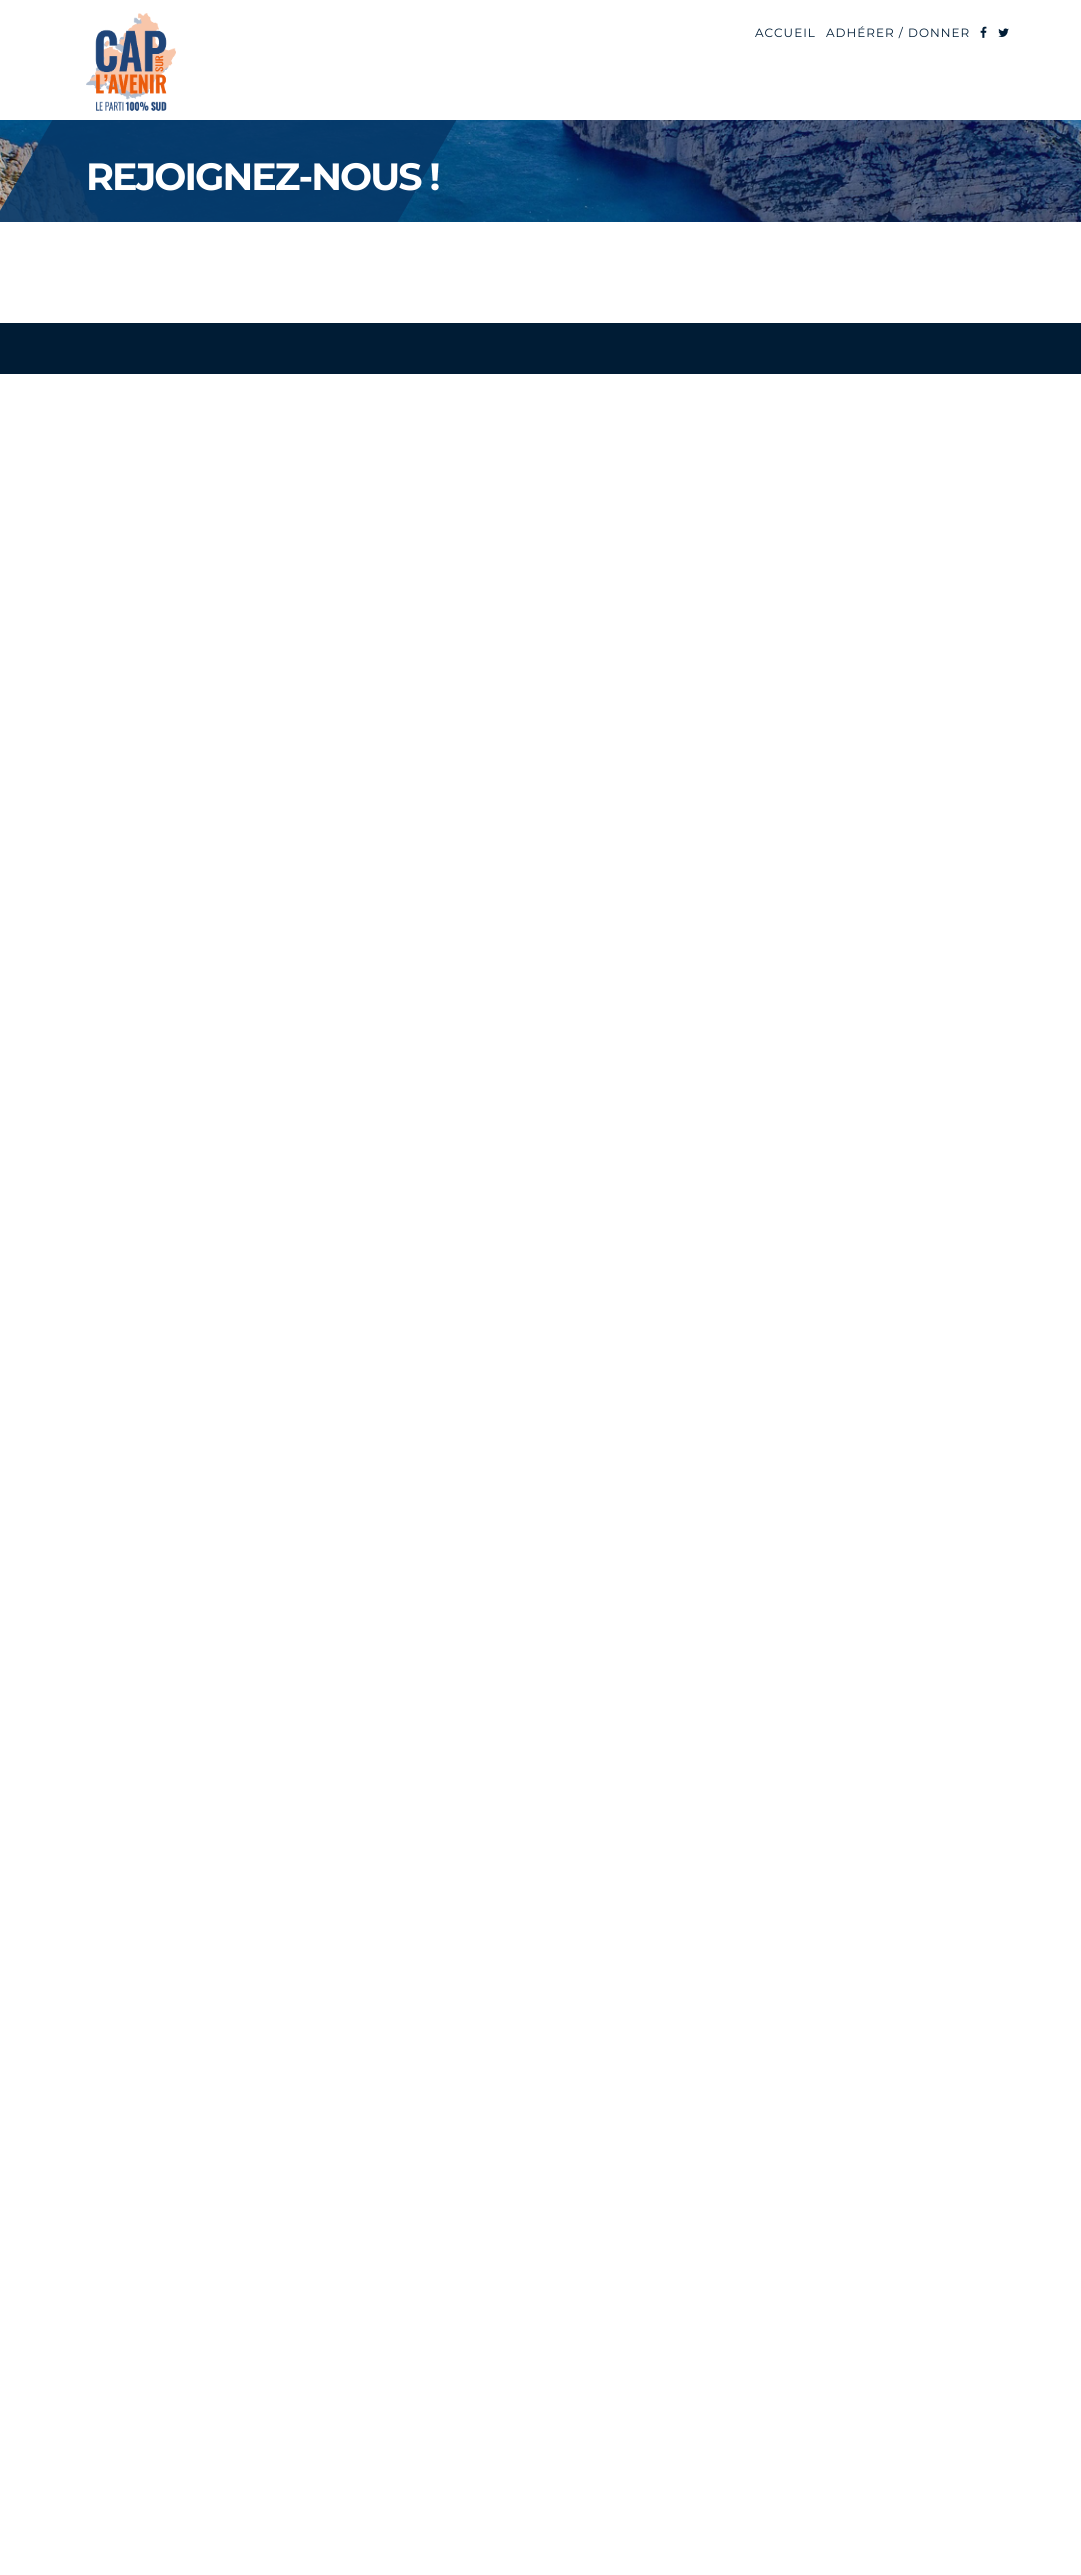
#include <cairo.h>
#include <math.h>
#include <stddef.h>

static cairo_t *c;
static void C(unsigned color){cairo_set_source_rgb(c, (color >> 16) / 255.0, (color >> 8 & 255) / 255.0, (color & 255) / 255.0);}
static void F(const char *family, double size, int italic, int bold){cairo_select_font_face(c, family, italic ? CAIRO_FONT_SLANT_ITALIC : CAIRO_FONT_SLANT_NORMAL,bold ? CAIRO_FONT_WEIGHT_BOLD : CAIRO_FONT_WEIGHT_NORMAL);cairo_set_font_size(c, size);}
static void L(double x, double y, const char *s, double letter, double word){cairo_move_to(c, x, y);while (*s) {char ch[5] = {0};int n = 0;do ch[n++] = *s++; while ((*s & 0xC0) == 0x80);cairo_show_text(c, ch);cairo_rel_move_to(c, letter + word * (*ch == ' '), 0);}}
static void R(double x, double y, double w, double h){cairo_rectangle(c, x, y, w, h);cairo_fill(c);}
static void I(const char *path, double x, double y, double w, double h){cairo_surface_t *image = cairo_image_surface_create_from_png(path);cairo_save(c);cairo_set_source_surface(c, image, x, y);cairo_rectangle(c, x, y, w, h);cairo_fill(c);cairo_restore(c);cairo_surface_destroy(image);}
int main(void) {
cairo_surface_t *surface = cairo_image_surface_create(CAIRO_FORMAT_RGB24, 1081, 2575);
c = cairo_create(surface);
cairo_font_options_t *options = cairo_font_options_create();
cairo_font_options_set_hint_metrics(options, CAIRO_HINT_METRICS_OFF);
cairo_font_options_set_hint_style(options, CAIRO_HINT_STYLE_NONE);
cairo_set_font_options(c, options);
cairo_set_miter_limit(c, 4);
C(0xffffff);
cairo_paint(c);
I("1.png",86,13,90,98);
F("Montserrat",12,0,0);
C(0x001c35);
L(755,37,"ACCUEIL",1,0);
L(826,37,"ADHÉRER / DONNER",1,0);
I("2.png",980,26,7,12);
I("3.png",998,28,11,9);
I("4.png",0,120,1081,102);
cairo_save(c);
cairo_rectangle(c,0,120,1081,102);
cairo_clip(c);
cairo_set_source_rgba(c,0.024,0.224,0.416,0.9);
cairo_new_path(c);
cairo_move_to(c,184,-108);
cairo_line_to(c,487,67);
cairo_line_to(c,87,760);
cairo_line_to(c,-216,585);
cairo_close_path(c);
cairo_fill(c);
cairo_restore(c);
F("Montserrat",38,0,1);
C(0xffffff);
L(86,190,"REJOIGNEZ-NOUS !",-1.9,0);
C(0x001c35);
R(0,323,1081,51);
cairo_surface_write_to_png(surface, "o.png");
cairo_font_options_destroy(options);
cairo_destroy(c);
cairo_surface_destroy(surface);
return 0;
}
